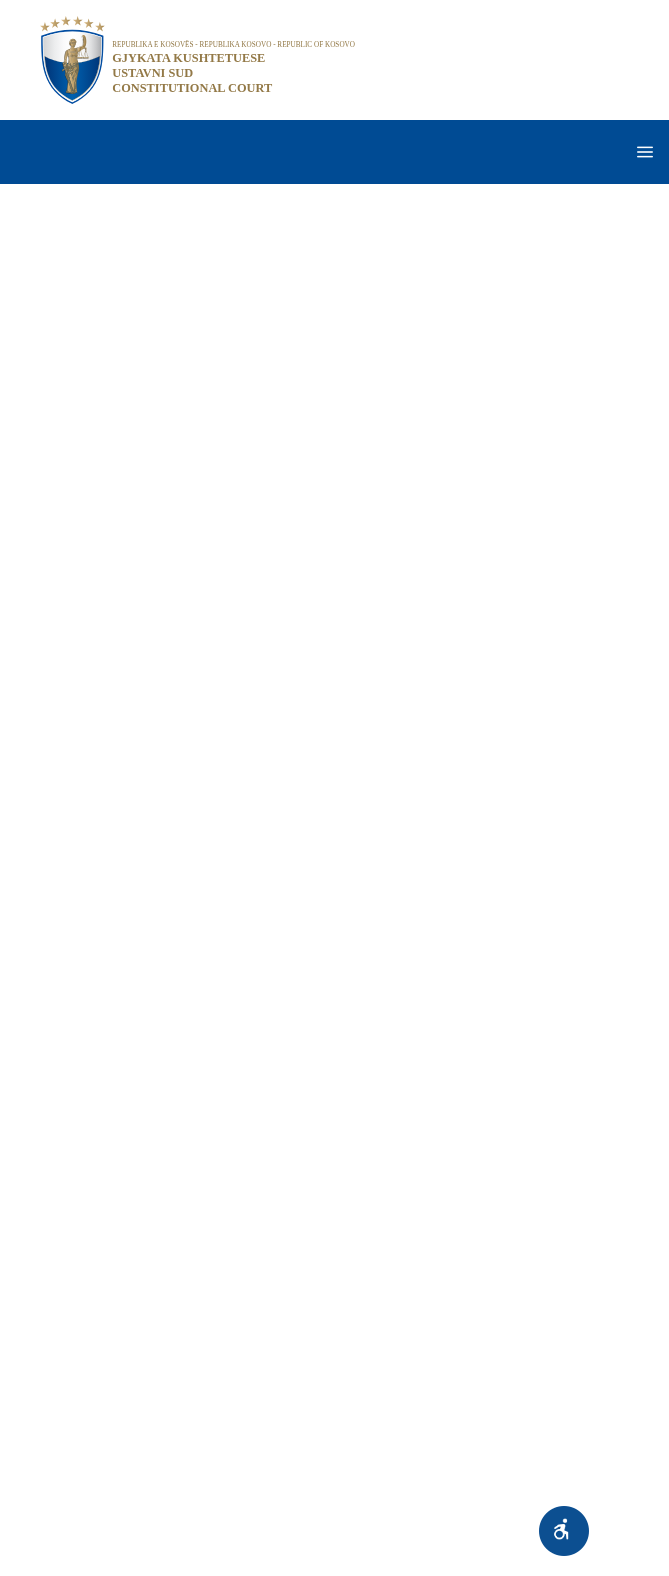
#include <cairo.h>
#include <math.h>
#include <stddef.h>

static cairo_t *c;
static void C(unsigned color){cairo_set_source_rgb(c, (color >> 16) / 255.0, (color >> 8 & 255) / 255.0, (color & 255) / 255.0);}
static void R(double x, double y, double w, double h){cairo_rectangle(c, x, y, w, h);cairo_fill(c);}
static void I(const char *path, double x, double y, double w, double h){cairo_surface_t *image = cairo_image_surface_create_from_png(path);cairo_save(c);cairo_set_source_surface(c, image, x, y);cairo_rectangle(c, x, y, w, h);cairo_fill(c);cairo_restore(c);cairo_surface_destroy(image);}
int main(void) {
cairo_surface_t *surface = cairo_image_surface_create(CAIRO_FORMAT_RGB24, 669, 1576);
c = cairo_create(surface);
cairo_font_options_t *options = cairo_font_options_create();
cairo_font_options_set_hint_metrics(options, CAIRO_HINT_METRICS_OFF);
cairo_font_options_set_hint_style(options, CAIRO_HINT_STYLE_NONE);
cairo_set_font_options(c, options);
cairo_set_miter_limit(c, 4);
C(0xffffff);
cairo_paint(c);
I("1.png",40,16,315,88);
C(0x004b94);
R(0,120,669,64);
I("2.png",637,146,16,12);
C(0x0c4f91);
cairo_arc(c,564,1531,25,0,2 * M_PI);
cairo_fill(c);
I("3.png",554,1518,15,22);
cairo_surface_write_to_png(surface, "o.png");
cairo_font_options_destroy(options);
cairo_destroy(c);
cairo_surface_destroy(surface);
return 0;
}
